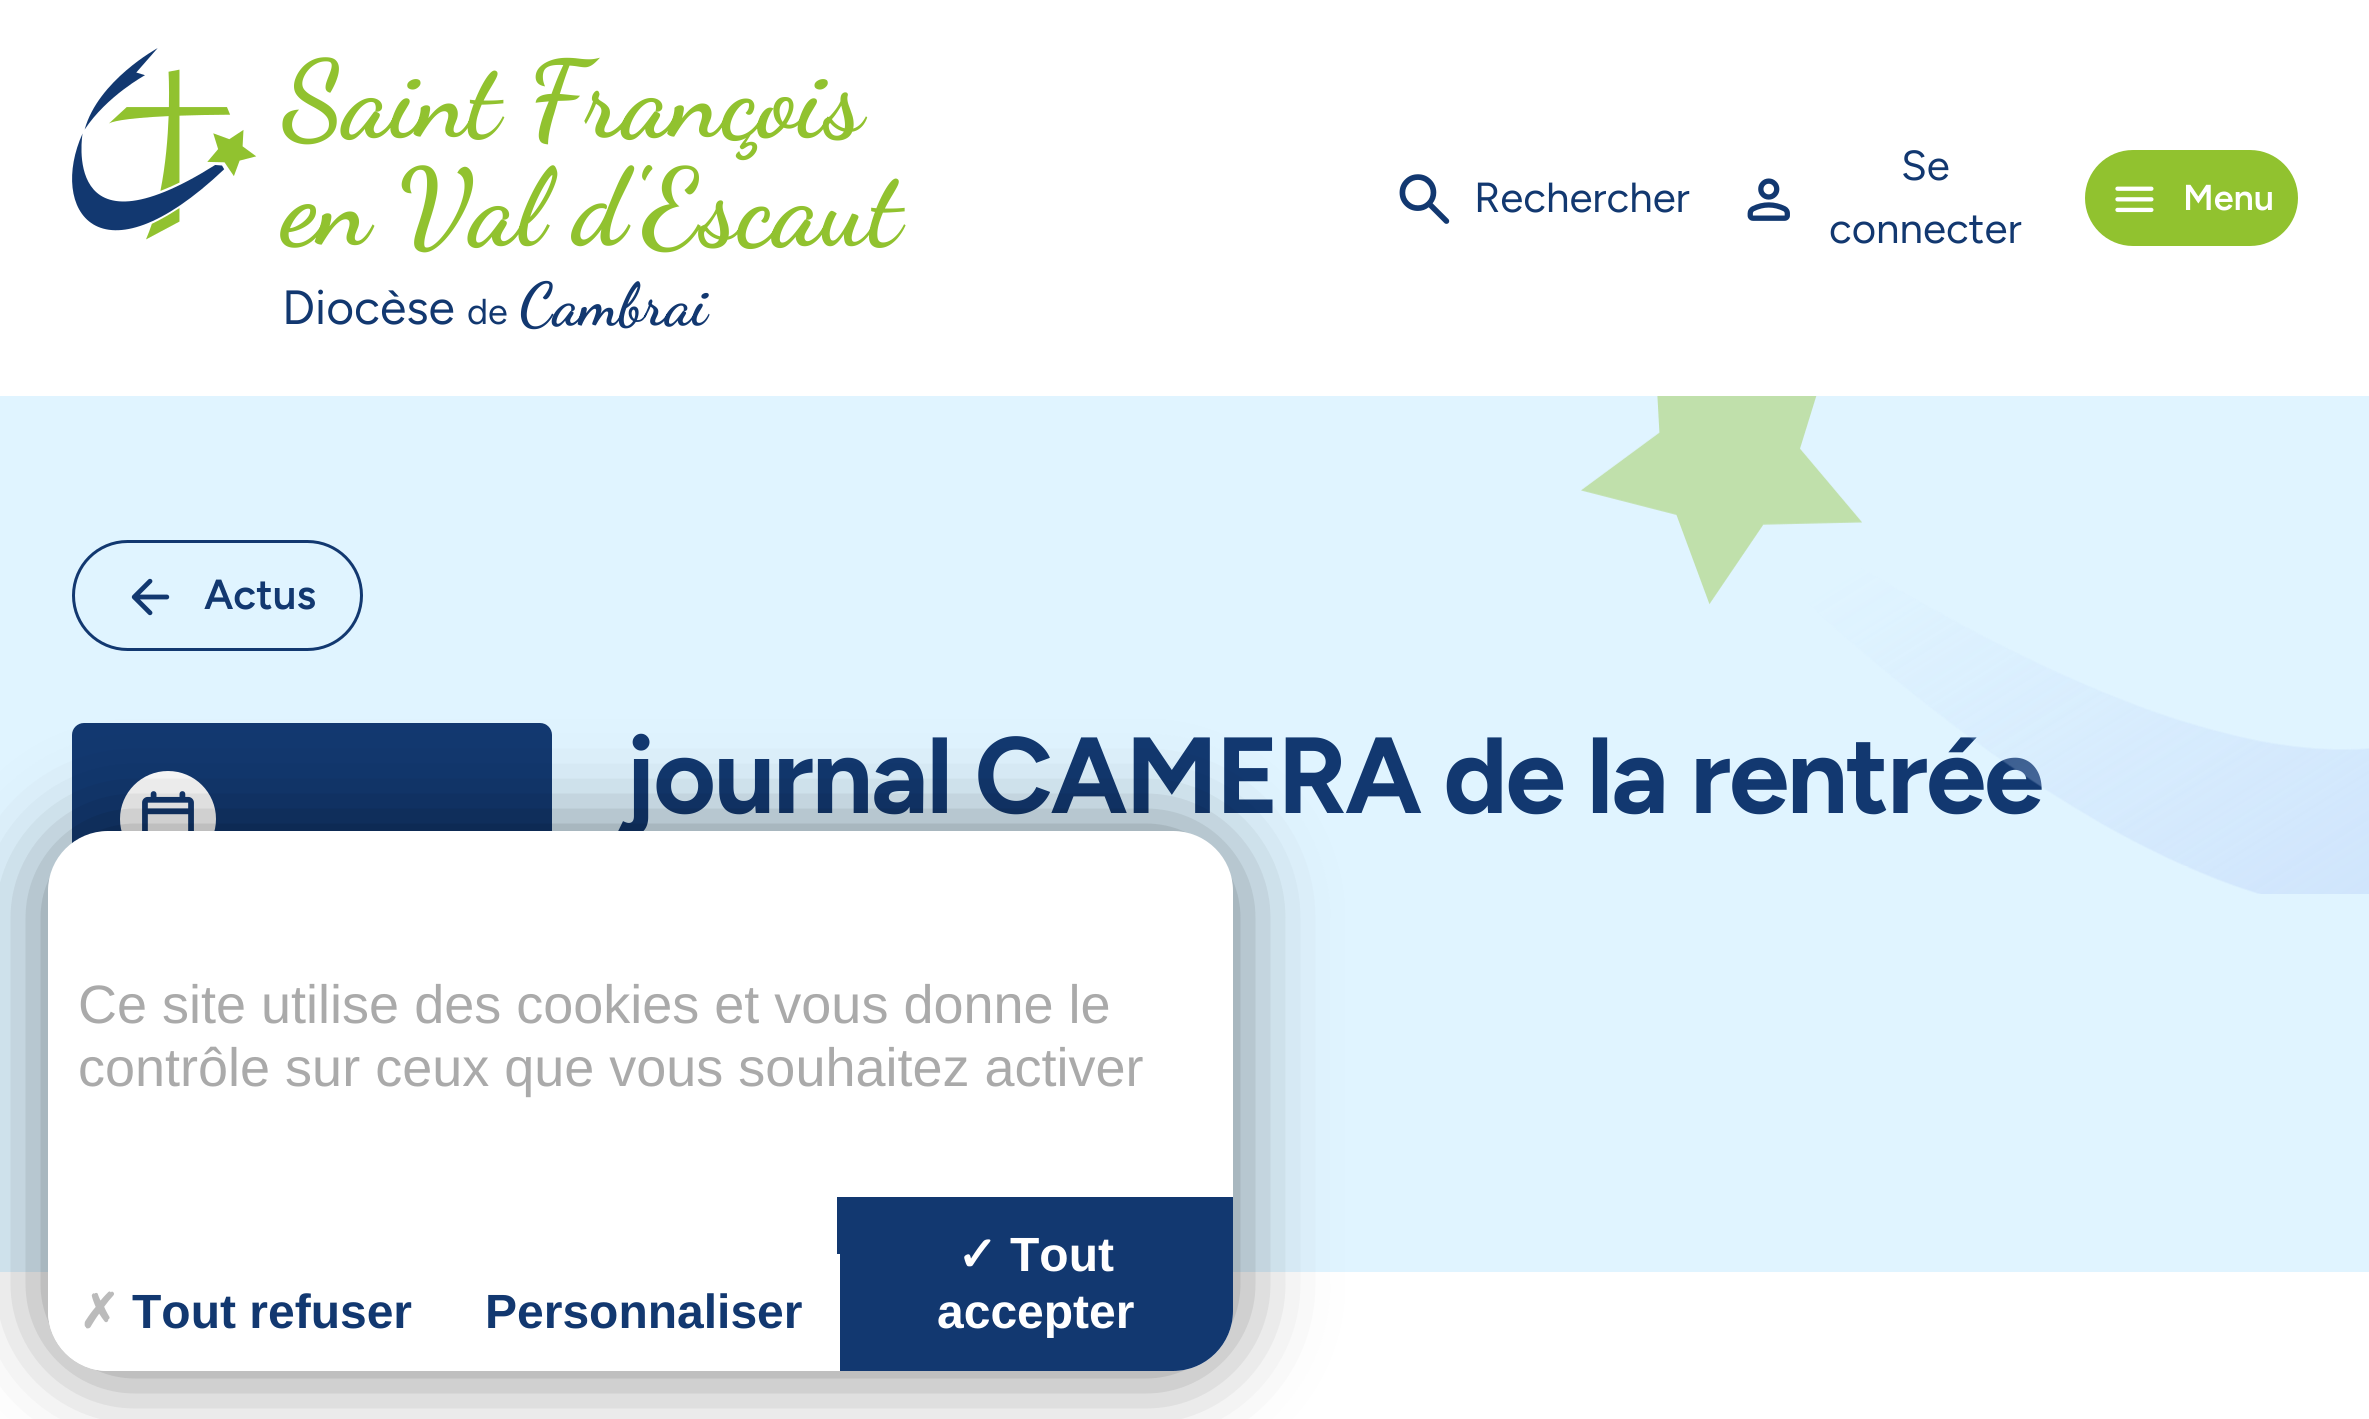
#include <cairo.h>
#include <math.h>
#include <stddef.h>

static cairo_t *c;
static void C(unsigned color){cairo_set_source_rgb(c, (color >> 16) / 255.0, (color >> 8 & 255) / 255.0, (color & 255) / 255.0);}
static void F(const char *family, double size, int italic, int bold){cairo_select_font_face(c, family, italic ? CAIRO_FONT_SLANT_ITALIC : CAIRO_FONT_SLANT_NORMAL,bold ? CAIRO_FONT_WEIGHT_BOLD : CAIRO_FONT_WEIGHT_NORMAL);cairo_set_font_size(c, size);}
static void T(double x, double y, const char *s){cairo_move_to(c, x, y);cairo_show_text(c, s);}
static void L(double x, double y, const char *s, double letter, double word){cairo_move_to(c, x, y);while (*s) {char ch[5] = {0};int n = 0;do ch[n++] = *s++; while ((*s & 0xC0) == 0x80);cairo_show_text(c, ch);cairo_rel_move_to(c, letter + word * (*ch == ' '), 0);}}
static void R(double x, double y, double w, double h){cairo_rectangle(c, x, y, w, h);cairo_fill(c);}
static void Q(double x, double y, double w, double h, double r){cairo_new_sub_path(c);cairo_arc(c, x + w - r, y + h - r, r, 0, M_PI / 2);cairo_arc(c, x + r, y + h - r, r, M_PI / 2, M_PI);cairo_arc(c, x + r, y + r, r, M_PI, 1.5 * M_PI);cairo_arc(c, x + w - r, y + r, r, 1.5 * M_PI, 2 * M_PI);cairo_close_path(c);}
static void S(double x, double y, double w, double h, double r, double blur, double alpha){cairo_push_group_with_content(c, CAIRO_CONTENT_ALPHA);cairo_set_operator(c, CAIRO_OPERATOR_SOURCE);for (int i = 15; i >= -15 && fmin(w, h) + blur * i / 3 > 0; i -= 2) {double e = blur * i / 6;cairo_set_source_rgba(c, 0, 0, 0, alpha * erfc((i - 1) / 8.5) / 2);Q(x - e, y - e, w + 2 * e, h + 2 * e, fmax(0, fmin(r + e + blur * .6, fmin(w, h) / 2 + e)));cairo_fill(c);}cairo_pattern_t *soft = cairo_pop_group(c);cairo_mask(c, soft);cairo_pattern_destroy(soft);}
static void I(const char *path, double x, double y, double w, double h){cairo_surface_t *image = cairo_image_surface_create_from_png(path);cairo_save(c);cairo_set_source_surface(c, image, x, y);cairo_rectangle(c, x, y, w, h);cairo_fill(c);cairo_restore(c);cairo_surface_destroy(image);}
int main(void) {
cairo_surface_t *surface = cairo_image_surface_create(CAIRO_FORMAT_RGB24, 2369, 1419);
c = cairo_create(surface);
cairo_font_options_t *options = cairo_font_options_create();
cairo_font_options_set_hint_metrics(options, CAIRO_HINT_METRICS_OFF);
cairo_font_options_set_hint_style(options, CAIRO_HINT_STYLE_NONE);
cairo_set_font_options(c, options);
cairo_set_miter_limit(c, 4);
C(0xffffff);
cairo_paint(c);
I("1.png",72,48,185,192);
F("Dancing Script",108,0,1);
C(0x91c22f);
T(282,135,"Saint François");
T(282,243,"en Val d'Escaut");
F("Figtree",48,0,0);
C(0x123870);
T(282,324,"Diocèse");
F("Figtree",36,0,0);
T(467,324,"de");
F("Dancing Script",60,0,1);
T(519,324,"Cambrai");
I("2.png",1399,174,51,50);
F("Figtree",42,0,0);
T(1474,212,"Rechercher");
I("3.png",1747,178,43,43);
T(1901,180,"Se");
T(1829,243,"connecter");
C(0x91c22f);
Q(2085,150,213,96,48);
cairo_fill(c);
I("4.png",2115,186,39,27);
F("Figtree SemiBold",36,0,0);
C(0xffffff);
T(2183,210,"Menu");
C(0xe0f4ff);
R(0,396,2369,876);
F("Figtree",108,0,1);
C(0x123870);
L(624,813,"journal CAMERA de la rentrée",-2.15,0);
I("5.png",1581,396,788,498);
Q(73.5,541.5,288,108,54);
cairo_set_line_width(c,3);
cairo_stroke(c);
I("6.png",131,578,39,38);
F("Figtree SemiBold",42,0,0);
T(204,609,"Actus");
Q(72,723,480,405,12);
cairo_fill(c);
C(0xffffff);
cairo_arc(c,168,819,48,0,2 * M_PI);
cairo_fill(c);
I("7.png",142,791,52,40);
C(0x000000);
S(48,831,1185,540,60,45,.5);
C(0xffffff);
Q(48,831,1185,540,60);
cairo_fill(c);
F("Liberation Sans",54,0,0);
C(0xaaaaaa);
T(78,1023,"Ce site utilise des cookies et vous donne le");
T(78,1086,"contrôle sur ceux que vous souhaitez activer");
C(0xffffff);
cairo_new_path(c);
cairo_move_to(c,48,1254);
cairo_line_to(c,444,1254);
cairo_line_to(c,444,1371);
cairo_line_to(c,108,1371);
cairo_curve_to(c,75,1371,48,1344,48,1311);
cairo_close_path(c);
cairo_fill(c);
F("DejaVu Sans",48,0,1);
C(0xbbbbbb);
T(79,1328,"✗");
F("Liberation Sans",48,0,1);
C(0x123870);
T(132,1328,"Tout refuser");
cairo_new_path(c);
cairo_move_to(c,837,1197);
cairo_line_to(c,1233,1197);
cairo_line_to(c,1233,1311);
cairo_curve_to(c,1233,1344,1206,1371,1173,1371);
cairo_line_to(c,837,1371);
cairo_close_path(c);
cairo_fill(c);
C(0xffffff);
R(837,1254,3,117);
C(0x123870);
T(485,1328,"Personnaliser");
F("DejaVu Sans",48,0,1);
C(0xffffff);
T(957,1271,"✓");
F("Liberation Sans",48,0,1);
T(1010,1271,"Tout");
T(937,1328,"accepter");
cairo_surface_write_to_png(surface, "o.png");
cairo_font_options_destroy(options);
cairo_destroy(c);
cairo_surface_destroy(surface);
return 0;
}
